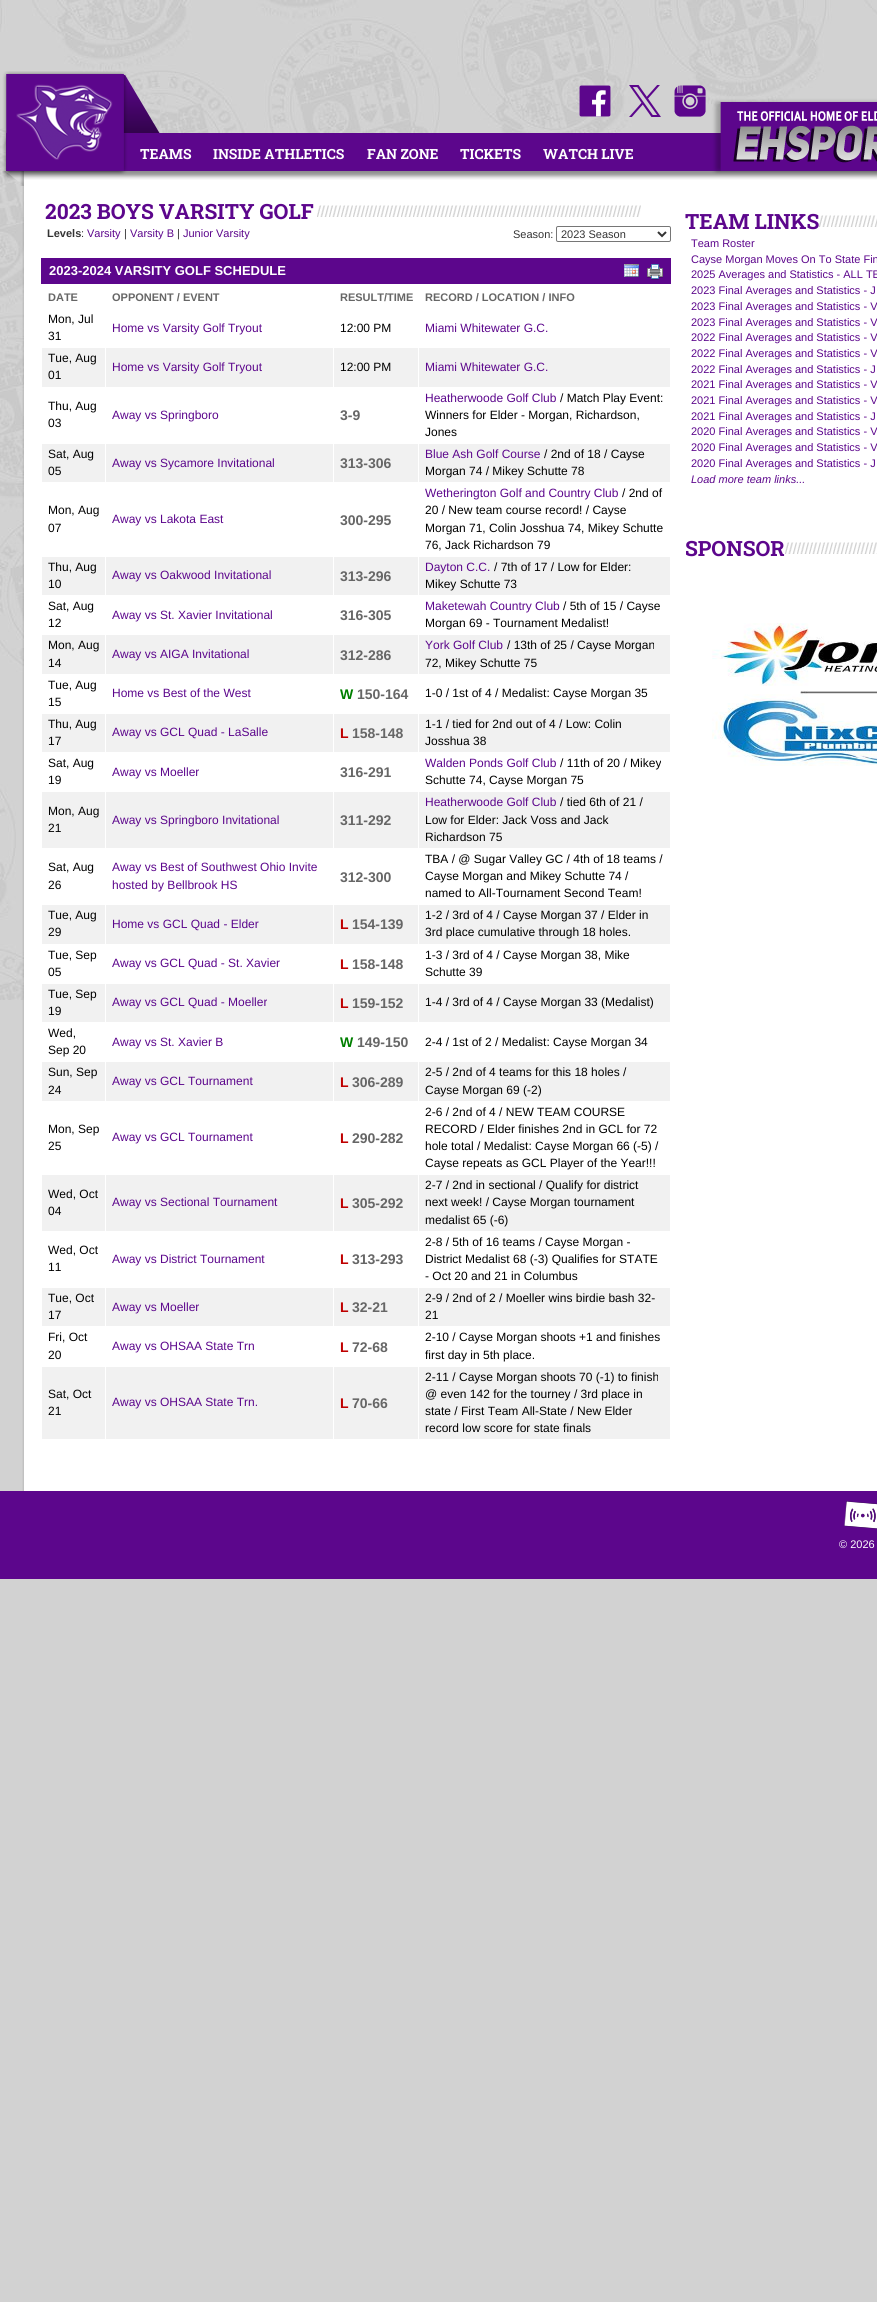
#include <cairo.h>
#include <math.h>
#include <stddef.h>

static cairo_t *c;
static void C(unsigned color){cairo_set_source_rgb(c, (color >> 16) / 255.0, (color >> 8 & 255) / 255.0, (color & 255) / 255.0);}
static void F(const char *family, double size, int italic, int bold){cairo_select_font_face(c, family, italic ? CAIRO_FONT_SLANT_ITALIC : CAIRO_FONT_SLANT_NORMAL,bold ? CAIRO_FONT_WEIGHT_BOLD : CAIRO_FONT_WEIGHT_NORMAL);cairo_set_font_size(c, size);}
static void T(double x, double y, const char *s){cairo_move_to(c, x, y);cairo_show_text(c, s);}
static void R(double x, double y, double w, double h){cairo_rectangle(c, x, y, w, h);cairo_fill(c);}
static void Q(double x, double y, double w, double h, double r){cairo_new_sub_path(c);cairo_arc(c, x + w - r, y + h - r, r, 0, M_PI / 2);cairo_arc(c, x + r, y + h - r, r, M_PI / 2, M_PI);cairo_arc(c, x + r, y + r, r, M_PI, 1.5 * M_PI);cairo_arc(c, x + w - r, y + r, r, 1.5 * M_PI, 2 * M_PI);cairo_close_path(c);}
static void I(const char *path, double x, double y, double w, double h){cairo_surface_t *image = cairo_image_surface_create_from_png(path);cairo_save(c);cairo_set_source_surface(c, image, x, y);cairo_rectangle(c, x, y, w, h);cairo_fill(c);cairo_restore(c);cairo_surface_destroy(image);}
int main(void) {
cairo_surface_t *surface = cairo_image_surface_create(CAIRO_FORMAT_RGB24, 877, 2302);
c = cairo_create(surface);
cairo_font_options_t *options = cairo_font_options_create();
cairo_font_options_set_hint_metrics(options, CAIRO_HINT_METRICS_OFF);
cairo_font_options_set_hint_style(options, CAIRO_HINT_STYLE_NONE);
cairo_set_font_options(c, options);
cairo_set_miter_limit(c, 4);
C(0xd2d2d2);
cairo_paint(c);
I("1.png",0,0,877,1000);
I("2.png",2,71,875,115);
I("3.png",16,84,97,76);
I("4.png",579,85,32,32);
I("5.png",629,85,32,32);
I("6.png",674,85,32,32);
F("Roboto Slab",14,0,1);
C(0xffffff);
T(140,159,"TEAMS");
T(213,159,"INSIDE ATHLETICS");
T(367,159,"FAN ZONE");
T(460,159,"TICKETS");
T(543,159,"WATCH LIVE");
I("7.png",733,111,144,52);
I("8.png",22,186,855,1305);
F("Roboto Slab",21,0,1);
C(0x5c068c);
T(45,219,"2023 BOYS VARSITY GOLF");
I("9.png",317,205,324,12);
F("Liberation Sans",11,0,1);
C(0x333333);
T(47,237,"Levels");
F("Liberation Sans",11,0,0);
T(81,237,":");
C(0x5c068c);
T(87,237,"Varsity");
C(0x333333);
T(124,237,"|");
C(0x5c068c);
T(130,237,"Varsity B");
C(0x333333);
T(177,237,"|");
C(0x5c068c);
T(183,237,"Junior Varsity");
C(0x333333);
T(513,238,"Season:");
Q(556.5,226.5,114,15,1.5);
C(0x767676);
cairo_set_line_width(c,1);
cairo_stroke(c);
cairo_new_path(c);
cairo_move_to(c,658,232);
cairo_line_to(c,662,236);
cairo_line_to(c,666,232);
C(0x333333);
cairo_set_line_width(c,2);
cairo_stroke(c);
T(561,238,"2023 Season");
C(0x5c068c);
R(41,258,630,26);
F("Liberation Sans",13,0,1);
C(0xffffff);
T(49,275,"2023-2024 VARSITY GOLF SCHEDULE");
I("10.png",624,264,15,13);
I("11.png",647,264,16,16);
F("Liberation Sans",11,0,1);
C(0x666666);
T(48,301,"DATE");
T(112,301,"OPPONENT / EVENT");
T(340,301,"RESULT/TIME");
T(425,301,"RECORD / LOCATION / INFO");
F("Liberation Sans",12,0,0);
C(0x000000);
T(48,323,"Mon, Jul");
T(48,340,"31");
C(0x5c068c);
T(112,332,"Home vs Varsity Golf Tryout");
C(0x000000);
T(340,332,"12:00 PM");
C(0x5c068c);
T(425,332,"Miami Whitewater G.C.");
C(0xf1f1f1);
R(42,348,628,39);
C(0x000000);
T(48,362,"Tue, Aug");
T(48,379,"01");
C(0xffffff);
R(105,347,1,41);
C(0x5c068c);
T(112,371,"Home vs Varsity Golf Tryout");
C(0xffffff);
R(333,347,1,41);
C(0x000000);
T(340,371,"12:00 PM");
C(0xffffff);
R(418,347,1,41);
C(0x5c068c);
T(425,371,"Miami Whitewater G.C.");
C(0x000000);
T(48,410,"Thu, Aug");
T(48,427,"03");
C(0x5c068c);
T(112,419,"Away vs Springboro");
F("Liberation Sans",14,0,1);
C(0x666666);
T(340,420,"3-9");
F("Liberation Sans",12,0,0);
C(0x5c068c);
T(425,402,"Heatherwoode Golf Club");
C(0x000000);
T(560,402,"/ Match Play Event:");
T(425,419,"Winners for Elder - Morgan, Richardson,");
T(425,436,"Jones");
C(0xf1f1f1);
R(42,444,628,38);
C(0x000000);
T(48,458,"Sat, Aug");
T(48,475,"05");
C(0xffffff);
R(105,443,1,40);
C(0x5c068c);
T(112,467,"Away vs Sycamore Invitational");
C(0xffffff);
R(333,443,1,40);
F("Liberation Sans",14,0,1);
C(0x666666);
T(340,468,"313-306");
C(0xffffff);
R(418,443,1,40);
F("Liberation Sans",12,0,0);
C(0x5c068c);
T(425,458,"Blue Ash Golf Course");
C(0x000000);
T(544,458,"/ 2nd of 18 / Cayse");
T(425,475,"Morgan 74 / Mikey Schutte 78");
T(48,514,"Mon, Aug");
T(48,532,"07");
C(0x5c068c);
T(112,523,"Away vs Lakota East");
F("Liberation Sans",14,0,1);
C(0x666666);
T(340,525,"300-295");
F("Liberation Sans",12,0,0);
C(0x5c068c);
T(425,497,"Wetherington Golf and Country Club");
C(0x000000);
T(622,497,"/ 2nd of");
T(425,514,"20 / New team course record! / Cayse");
T(425,532,"Morgan 71, Colin Josshua 74, Mikey Schutte");
T(425,549,"76, Jack Richardson 79");
C(0xf1f1f1);
R(42,557,628,38);
C(0x000000);
T(48,571,"Thu, Aug");
T(48,588,"10");
C(0xffffff);
R(105,556,1,40);
C(0x5c068c);
T(112,579,"Away vs Oakwood Invitational");
C(0xffffff);
R(333,556,1,40);
F("Liberation Sans",14,0,1);
C(0x666666);
T(340,581,"313-296");
C(0xffffff);
R(418,556,1,40);
F("Liberation Sans",12,0,0);
C(0x5c068c);
T(425,571,"Dayton C.C.");
C(0x000000);
T(494,571,"/ 7th of 17 / Low for Elder:");
T(425,588,"Mikey Schutte 73");
T(48,610,"Sat, Aug");
T(48,627,"12");
C(0x5c068c);
T(112,619,"Away vs St. Xavier Invitational");
F("Liberation Sans",14,0,1);
C(0x666666);
T(340,620,"316-305");
F("Liberation Sans",12,0,0);
C(0x5c068c);
T(425,610,"Maketewah Country Club");
C(0x000000);
T(563,610,"/ 5th of 15 / Cayse");
T(425,627,"Morgan 69 - Tournament Medalist!");
C(0xf1f1f1);
R(42,635,628,39);
C(0x000000);
T(48,649,"Mon, Aug");
T(48,667,"14");
C(0xffffff);
R(105,634,1,41);
C(0x5c068c);
T(112,658,"Away vs AIGA Invitational");
C(0xffffff);
R(333,634,1,41);
F("Liberation Sans",14,0,1);
C(0x666666);
T(340,660,"312-286");
C(0xffffff);
R(418,634,1,41);
F("Liberation Sans",12,0,0);
C(0x5c068c);
T(425,649,"York Golf Club");
C(0x000000);
T(507,649,"/ 13th of 25 / Cayse Morgan");
T(425,667,"72, Mikey Schutte 75");
T(48,689,"Tue, Aug");
T(48,706,"15");
C(0x5c068c);
T(112,697,"Home vs Best of the West");
F("Liberation Sans",14,0,1);
C(0x007f00);
T(340,699,"W");
C(0x666666);
T(357,699,"150-164");
F("Liberation Sans",12,0,0);
C(0x000000);
T(425,697,"1-0 / 1st of 4 / Medalist: Cayse Morgan 35");
C(0xf1f1f1);
R(42,714,628,38);
C(0x000000);
T(48,728,"Thu, Aug");
T(48,745,"17");
C(0xffffff);
R(105,713,1,40);
C(0x5c068c);
T(112,736,"Away vs GCL Quad - LaSalle");
C(0xffffff);
R(333,713,1,40);
F("Liberation Sans",14,0,1);
C(0xbf0000);
T(340,738,"L");
C(0x666666);
T(352,738,"158-148");
C(0xffffff);
R(418,713,1,40);
F("Liberation Sans",12,0,0);
C(0x000000);
T(425,728,"1-1 / tied for 2nd out of 4 / Low: Colin");
T(425,745,"Josshua 38");
T(48,767,"Sat, Aug");
T(48,784,"19");
C(0x5c068c);
T(112,776,"Away vs Moeller");
F("Liberation Sans",14,0,1);
C(0x666666);
T(340,777,"316-291");
F("Liberation Sans",12,0,0);
C(0x5c068c);
T(425,767,"Walden Ponds Golf Club");
C(0x000000);
T(560,767,"/ 11th of 20 / Mikey");
T(425,784,"Schutte 74, Cayse Morgan 75");
C(0xf1f1f1);
R(42,792,628,56);
C(0x000000);
T(48,815,"Mon, Aug");
T(48,832,"21");
C(0xffffff);
R(105,791,1,58);
C(0x5c068c);
T(112,824,"Away vs Springboro Invitational");
C(0xffffff);
R(333,791,1,58);
F("Liberation Sans",14,0,1);
C(0x666666);
T(340,825,"311-292");
C(0xffffff);
R(418,791,1,58);
F("Liberation Sans",12,0,0);
C(0x5c068c);
T(425,806,"Heatherwoode Golf Club");
C(0x000000);
T(560,806,"/ tied 6th of 21 /");
T(425,824,"Low for Elder: Jack Voss and Jack");
T(425,841,"Richardson 75");
T(48,871,"Sat, Aug");
T(48,889,"26");
C(0x5c068c);
T(112,871,"Away vs Best of Southwest Ohio Invite");
T(112,889,"hosted by Bellbrook HS");
F("Liberation Sans",14,0,1);
C(0x666666);
T(340,882,"312-300");
F("Liberation Sans",12,0,0);
C(0x000000);
T(425,863,"TBA / @ Sugar Valley GC / 4th of 18 teams /");
T(425,880,"Cayse Morgan and Mikey Schutte 74 /");
T(425,897,"named to All-Tournament Second Team!");
C(0xf1f1f1);
R(42,905,628,39);
C(0x000000);
T(48,919,"Tue, Aug");
T(48,936,"29");
C(0xffffff);
R(105,904,1,41);
C(0x5c068c);
T(112,928,"Home vs GCL Quad - Elder");
C(0xffffff);
R(333,904,1,41);
F("Liberation Sans",14,0,1);
C(0xbf0000);
T(340,929,"L");
C(0x666666);
T(352,929,"154-139");
C(0xffffff);
R(418,904,1,41);
F("Liberation Sans",12,0,0);
C(0x000000);
T(425,919,"1-2 / 3rd of 4 / Cayse Morgan 37 / Elder in");
T(425,936,"3rd place cumulative through 18 holes.");
T(48,959,"Tue, Sep");
T(48,976,"05");
C(0x5c068c);
T(112,967,"Away vs GCL Quad - St. Xavier");
F("Liberation Sans",14,0,1);
C(0xbf0000);
T(340,969,"L");
C(0x666666);
T(352,969,"158-148");
F("Liberation Sans",12,0,0);
C(0x000000);
T(425,959,"1-3 / 3rd of 4 / Cayse Morgan 38, Mike");
T(425,976,"Schutte 39");
C(0xf1f1f1);
R(42,984,628,38);
C(0x000000);
T(48,998,"Tue, Sep");
T(48,1015,"19");
C(0xffffff);
R(105,983,1,40);
C(0x5c068c);
T(112,1006,"Away vs GCL Quad - Moeller");
C(0xffffff);
R(333,983,1,40);
F("Liberation Sans",14,0,1);
C(0xbf0000);
T(340,1008,"L");
C(0x666666);
T(352,1008,"159-152");
C(0xffffff);
R(418,983,1,40);
F("Liberation Sans",12,0,0);
C(0x000000);
T(425,1006,"1-4 / 3rd of 4 / Cayse Morgan 33 (Medalist)");
T(48,1037,"Wed,");
T(48,1054,"Sep 20");
C(0x5c068c);
T(112,1046,"Away vs St. Xavier B");
F("Liberation Sans",14,0,1);
C(0x007f00);
T(340,1047,"W");
C(0x666666);
T(357,1047,"149-150");
F("Liberation Sans",12,0,0);
C(0x000000);
T(425,1046,"2-4 / 1st of 2 / Medalist: Cayse Morgan 34");
C(0xf1f1f1);
R(42,1062,628,39);
C(0x000000);
T(48,1076,"Sun, Sep");
T(48,1094,"24");
C(0xffffff);
R(105,1061,1,41);
C(0x5c068c);
T(112,1085,"Away vs GCL Tournament");
C(0xffffff);
R(333,1061,1,41);
F("Liberation Sans",14,0,1);
C(0xbf0000);
T(340,1087,"L");
C(0x666666);
T(352,1087,"306-289");
C(0xffffff);
R(418,1061,1,41);
F("Liberation Sans",12,0,0);
C(0x000000);
T(425,1076,"2-5 / 2nd of 4 teams for this 18 holes /");
T(425,1094,"Cayse Morgan 69 (-2)");
T(48,1133,"Mon, Sep");
T(48,1150,"25");
C(0x5c068c);
T(112,1141,"Away vs GCL Tournament");
F("Liberation Sans",14,0,1);
C(0xbf0000);
T(340,1143,"L");
C(0x666666);
T(352,1143,"290-282");
F("Liberation Sans",12,0,0);
C(0x000000);
T(425,1116,"2-6 / 2nd of 4 / NEW TEAM COURSE");
T(425,1133,"RECORD / Elder finishes 2nd in GCL for 72");
T(425,1150,"hole total / Medalist: Cayse Morgan 66 (-5) /");
T(425,1167,"Cayse repeats as GCL Player of the Year!!!");
C(0xf1f1f1);
R(42,1175,628,56);
C(0x000000);
T(48,1198,"Wed, Oct");
T(48,1215,"04");
C(0xffffff);
R(105,1174,1,58);
C(0x5c068c);
T(112,1206,"Away vs Sectional Tournament");
C(0xffffff);
R(333,1174,1,58);
F("Liberation Sans",14,0,1);
C(0xbf0000);
T(340,1208,"L");
C(0x666666);
T(352,1208,"305-292");
C(0xffffff);
R(418,1174,1,58);
F("Liberation Sans",12,0,0);
C(0x000000);
T(425,1189,"2-7 / 2nd in sectional / Qualify for district");
T(425,1206,"next week! / Cayse Morgan tournament");
T(425,1224,"medalist 65 (-6)");
T(48,1254,"Wed, Oct");
T(48,1271,"11");
C(0x5c068c);
T(112,1263,"Away vs District Tournament");
F("Liberation Sans",14,0,1);
C(0xbf0000);
T(340,1264,"L");
C(0x666666);
T(352,1264,"313-293");
F("Liberation Sans",12,0,0);
C(0x000000);
T(425,1246,"2-8 / 5th of 16 teams / Cayse Morgan -");
T(425,1263,"District Medalist 68 (-3) Qualifies for STATE");
T(425,1280,"- Oct 20 and 21 in Columbus");
C(0xf1f1f1);
R(42,1288,628,38);
C(0x000000);
T(48,1302,"Tue, Oct");
T(48,1319,"17");
C(0xffffff);
R(105,1287,1,40);
C(0x5c068c);
T(112,1311,"Away vs Moeller");
C(0xffffff);
R(333,1287,1,40);
F("Liberation Sans",14,0,1);
C(0xbf0000);
T(340,1312,"L");
C(0x666666);
T(352,1312,"32-21");
C(0xffffff);
R(418,1287,1,40);
F("Liberation Sans",12,0,0);
C(0x000000);
T(425,1302,"2-9 / 2nd of 2 / Moeller wins birdie bash 32-");
T(425,1319,"21");
T(48,1341,"Fri, Oct");
T(48,1359,"20");
C(0x5c068c);
T(112,1350,"Away vs OHSAA State Trn");
F("Liberation Sans",14,0,1);
C(0xbf0000);
T(340,1352,"L");
C(0x666666);
T(352,1352,"72-68");
F("Liberation Sans",12,0,0);
C(0x000000);
T(425,1341,"2-10 / Cayse Morgan shoots +1 and finishes");
T(425,1359,"first day in 5th place.");
C(0xf1f1f1);
R(42,1367,628,72);
C(0x000000);
T(48,1398,"Sat, Oct");
T(48,1415,"21");
C(0xffffff);
R(105,1366,1,74);
C(0x5c068c);
T(112,1406,"Away vs OHSAA State Trn.");
C(0xffffff);
R(333,1366,1,74);
F("Liberation Sans",14,0,1);
C(0xbf0000);
T(340,1408,"L");
C(0x666666);
T(352,1408,"70-66");
C(0xffffff);
R(418,1366,1,74);
F("Liberation Sans",12,0,0);
C(0x000000);
T(425,1381,"2-11 / Cayse Morgan shoots 70 (-1) to finish");
T(425,1398,"@ even 142 for the tourney / 3rd place in");
T(425,1415,"state / First Team All-State / New Elder");
T(425,1432,"record low score for state finals");
F("Roboto Slab",21,0,1);
C(0x5c068c);
T(685,229,"TEAM LINKS");
I("12.png",819,215,58,12);
F("Liberation Sans",11,0,0);
T(691,247,"Team Roster");
T(691,263,"Cayse Morgan Moves On To State Fin");
T(691,278,"2025 Averages and Statistics - ALL TE");
T(691,294,"2023 Final Averages and Statistics - J");
T(691,310,"2023 Final Averages and Statistics - V");
T(691,326,"2023 Final Averages and Statistics - V");
T(691,341,"2022 Final Averages and Statistics - V");
T(691,357,"2022 Final Averages and Statistics - V");
T(691,373,"2022 Final Averages and Statistics - J");
T(691,388,"2021 Final Averages and Statistics - V");
T(691,404,"2021 Final Averages and Statistics - V");
T(691,420,"2021 Final Averages and Statistics - J");
T(691,435,"2020 Final Averages and Statistics - V");
T(691,451,"2020 Final Averages and Statistics - V");
T(691,467,"2020 Final Averages and Statistics - J");
F("Liberation Sans",11,1,0);
T(691,483,"Load more team links...");
F("Roboto Slab",21,0,1);
T(685,556,"SPONSOR");
I("13.png",785,542,92,12);
I("14.png",712,623,165,143);
R(0,1491,877,88);
I("15.png",844,1501,33,28);
F("Liberation Sans",11,0,0);
C(0xffffff);
T(839,1548,"© 2026");
cairo_surface_write_to_png(surface, "o.png");
cairo_font_options_destroy(options);
cairo_destroy(c);
cairo_surface_destroy(surface);
return 0;
}
